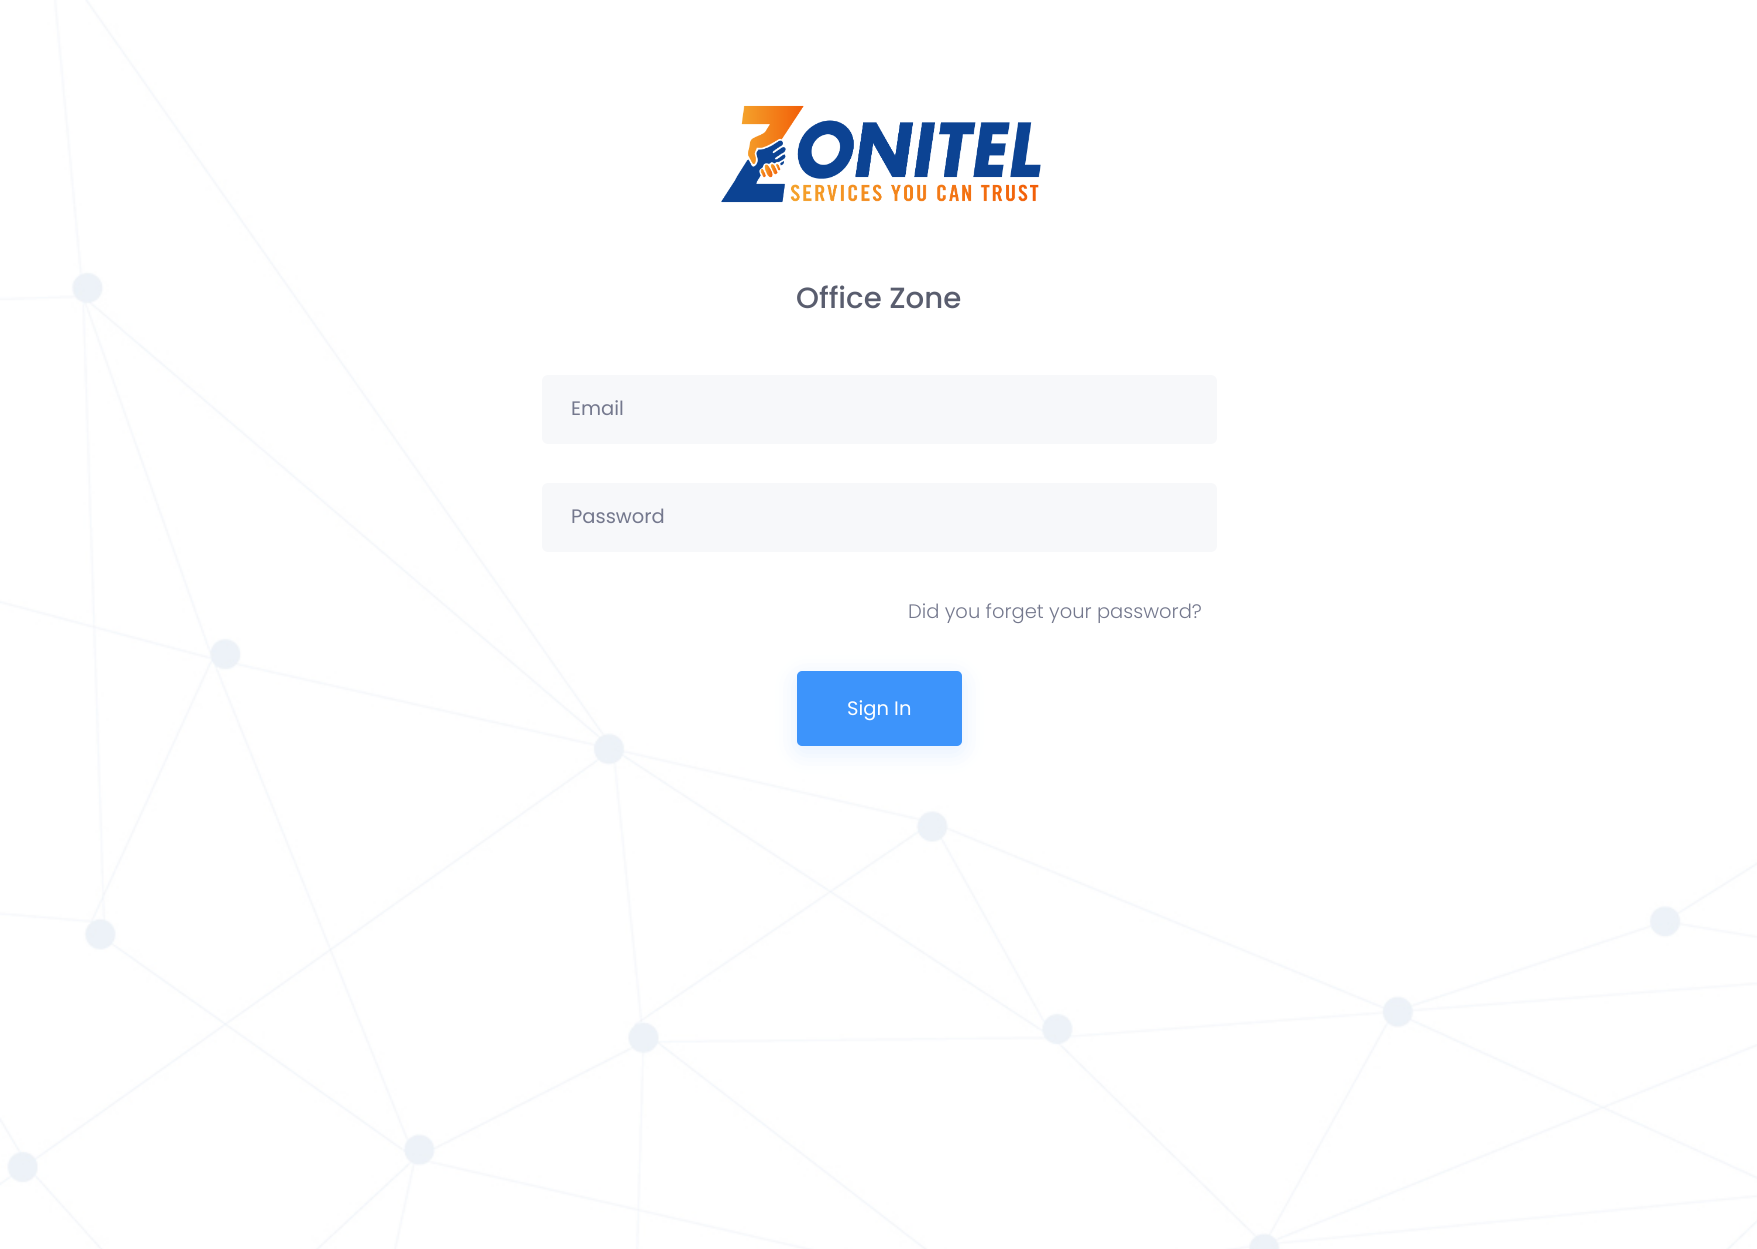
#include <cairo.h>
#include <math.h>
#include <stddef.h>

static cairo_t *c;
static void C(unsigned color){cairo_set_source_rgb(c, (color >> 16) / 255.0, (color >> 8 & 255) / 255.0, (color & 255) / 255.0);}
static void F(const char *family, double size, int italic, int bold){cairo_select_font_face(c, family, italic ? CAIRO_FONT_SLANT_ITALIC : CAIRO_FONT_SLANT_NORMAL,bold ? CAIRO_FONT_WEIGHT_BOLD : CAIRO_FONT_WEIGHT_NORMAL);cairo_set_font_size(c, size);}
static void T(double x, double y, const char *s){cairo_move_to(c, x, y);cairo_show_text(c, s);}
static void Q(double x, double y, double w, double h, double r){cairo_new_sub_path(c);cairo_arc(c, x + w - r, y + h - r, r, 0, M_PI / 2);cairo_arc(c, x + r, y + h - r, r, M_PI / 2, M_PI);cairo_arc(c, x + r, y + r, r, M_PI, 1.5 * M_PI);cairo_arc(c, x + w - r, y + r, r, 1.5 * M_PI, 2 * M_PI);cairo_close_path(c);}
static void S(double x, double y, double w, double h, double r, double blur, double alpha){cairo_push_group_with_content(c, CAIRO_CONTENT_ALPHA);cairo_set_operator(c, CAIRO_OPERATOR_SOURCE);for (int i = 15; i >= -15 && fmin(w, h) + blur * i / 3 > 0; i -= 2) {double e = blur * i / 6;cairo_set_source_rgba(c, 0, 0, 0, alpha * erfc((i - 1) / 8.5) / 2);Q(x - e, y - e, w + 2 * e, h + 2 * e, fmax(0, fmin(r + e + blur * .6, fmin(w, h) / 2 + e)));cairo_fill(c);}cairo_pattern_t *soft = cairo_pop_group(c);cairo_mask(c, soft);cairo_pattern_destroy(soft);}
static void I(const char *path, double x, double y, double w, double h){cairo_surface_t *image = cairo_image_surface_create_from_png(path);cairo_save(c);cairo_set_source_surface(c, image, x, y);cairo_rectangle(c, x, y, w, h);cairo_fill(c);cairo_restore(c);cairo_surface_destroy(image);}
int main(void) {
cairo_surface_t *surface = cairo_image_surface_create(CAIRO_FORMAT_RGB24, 1757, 1249);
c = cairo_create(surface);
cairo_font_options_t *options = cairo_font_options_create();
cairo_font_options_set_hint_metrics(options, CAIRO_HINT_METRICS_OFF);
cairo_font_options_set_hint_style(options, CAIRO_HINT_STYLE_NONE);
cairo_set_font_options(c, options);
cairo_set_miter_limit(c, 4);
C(0xffffff);
cairo_paint(c);
I("1.png",0,0,1757,1249);
I("2.png",721,105,320,98);
F("Poppins Medium",29.25,0,0);
C(0x595d6e);
T(796,308,"Office Zone");
C(0xf7f8fa);
Q(542,375,675,69,6);
cairo_fill(c);
F("Poppins",19.5,0,0);
C(0x74788d);
T(571,415,"Email");
C(0xf7f8fa);
Q(542,483,675,69,6);
cairo_fill(c);
C(0x74788d);
T(571,523,"Password");
F("Poppins Light",19.5,0,0);
T(908,618,"Did you forget your password?");
C(0x3d94fb);
S(797,677,165,75,5,12,.15);
C(0x3d94fb);
Q(798,672,163,73,4);
cairo_fill_preserve(c);
cairo_stroke(c);
F("Poppins",19.5,0,0);
C(0xffffff);
T(847,715,"Sign In");
cairo_surface_write_to_png(surface, "o.png");
cairo_font_options_destroy(options);
cairo_destroy(c);
cairo_surface_destroy(surface);
return 0;
}
